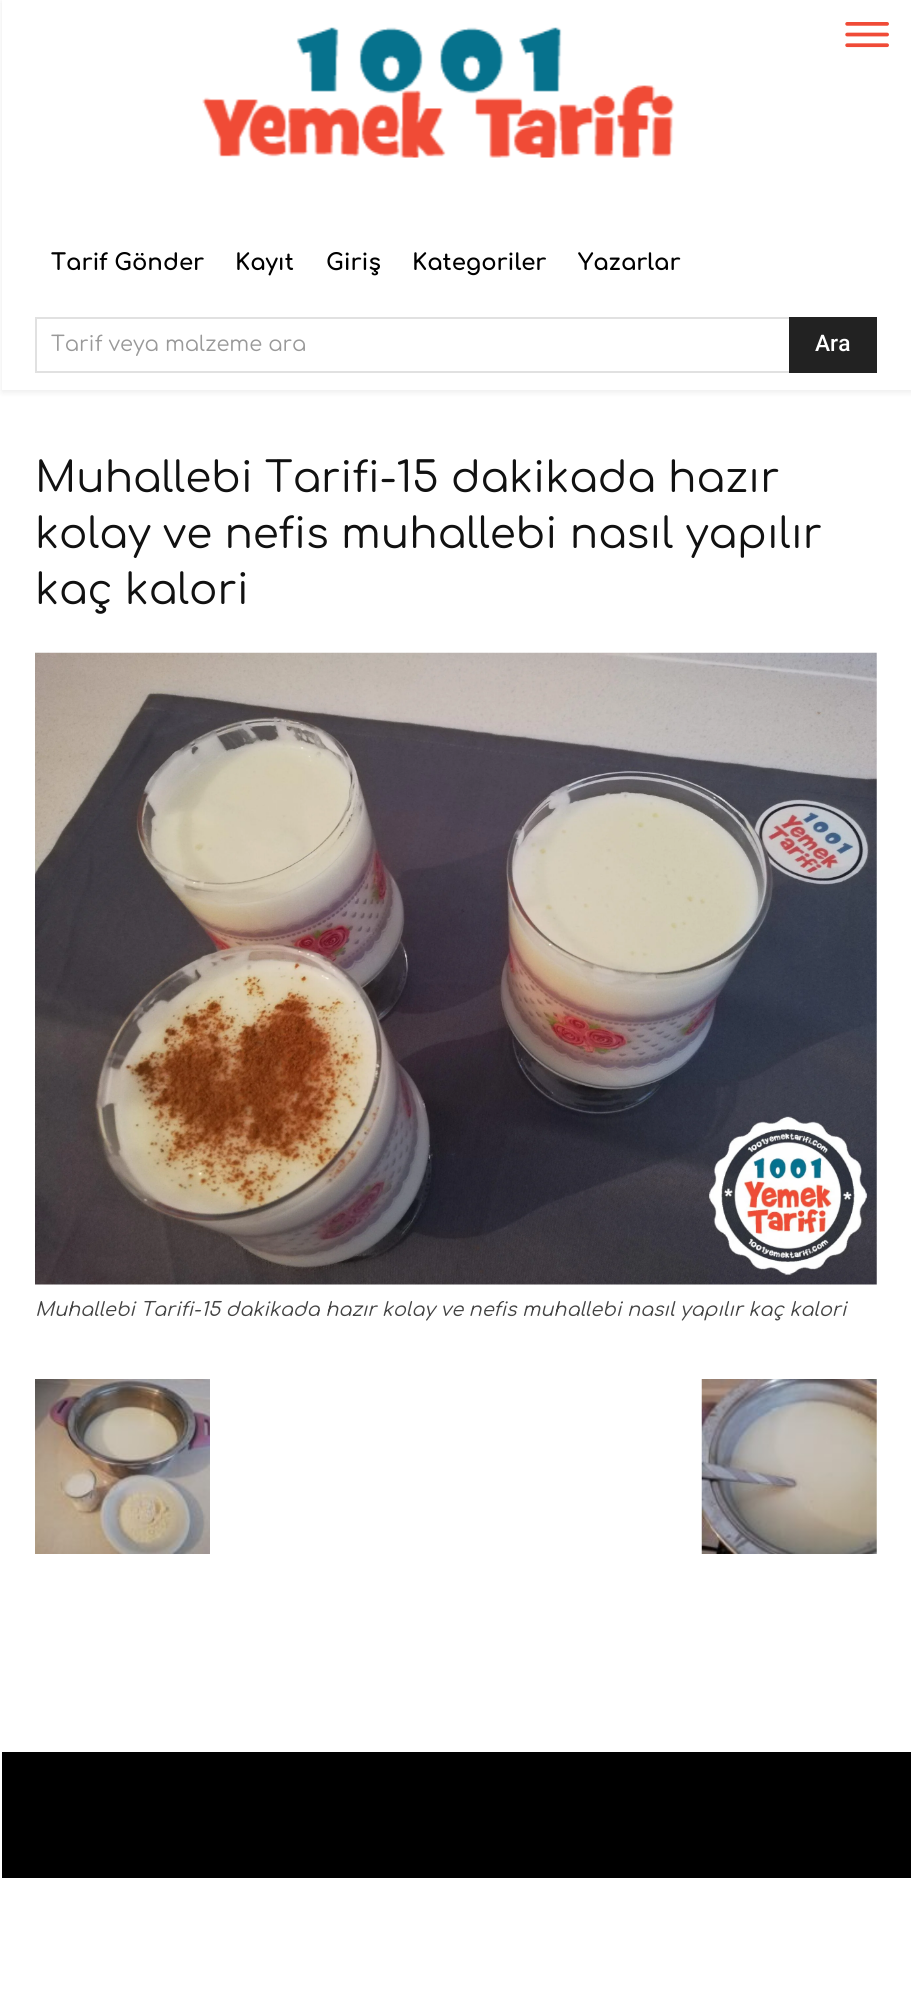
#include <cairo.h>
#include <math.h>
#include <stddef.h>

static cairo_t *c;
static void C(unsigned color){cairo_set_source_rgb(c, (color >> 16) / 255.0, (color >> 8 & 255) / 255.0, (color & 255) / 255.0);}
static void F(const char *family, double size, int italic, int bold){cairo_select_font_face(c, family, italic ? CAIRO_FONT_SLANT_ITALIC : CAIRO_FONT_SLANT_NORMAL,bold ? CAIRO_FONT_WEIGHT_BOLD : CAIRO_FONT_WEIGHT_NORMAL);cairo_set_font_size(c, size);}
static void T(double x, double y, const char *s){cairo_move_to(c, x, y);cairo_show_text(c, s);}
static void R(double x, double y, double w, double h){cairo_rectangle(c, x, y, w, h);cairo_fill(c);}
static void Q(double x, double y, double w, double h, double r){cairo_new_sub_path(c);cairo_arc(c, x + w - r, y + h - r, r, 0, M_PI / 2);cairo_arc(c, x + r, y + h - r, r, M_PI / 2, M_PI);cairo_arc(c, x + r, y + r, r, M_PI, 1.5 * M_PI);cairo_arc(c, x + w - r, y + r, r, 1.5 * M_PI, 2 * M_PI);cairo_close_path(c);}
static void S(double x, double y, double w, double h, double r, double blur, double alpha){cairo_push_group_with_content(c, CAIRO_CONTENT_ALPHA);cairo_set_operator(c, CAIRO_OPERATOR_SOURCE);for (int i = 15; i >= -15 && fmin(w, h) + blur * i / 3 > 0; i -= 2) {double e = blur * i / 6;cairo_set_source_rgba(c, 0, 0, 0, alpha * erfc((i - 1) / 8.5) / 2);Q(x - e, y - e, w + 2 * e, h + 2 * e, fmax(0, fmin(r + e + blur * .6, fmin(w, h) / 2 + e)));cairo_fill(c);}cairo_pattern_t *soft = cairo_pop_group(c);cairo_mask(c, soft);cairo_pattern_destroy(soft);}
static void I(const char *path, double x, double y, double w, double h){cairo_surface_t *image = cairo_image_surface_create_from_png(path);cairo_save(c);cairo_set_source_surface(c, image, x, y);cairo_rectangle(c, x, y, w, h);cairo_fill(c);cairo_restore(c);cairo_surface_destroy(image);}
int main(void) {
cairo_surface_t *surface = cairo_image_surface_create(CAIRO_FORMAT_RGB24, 911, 2012);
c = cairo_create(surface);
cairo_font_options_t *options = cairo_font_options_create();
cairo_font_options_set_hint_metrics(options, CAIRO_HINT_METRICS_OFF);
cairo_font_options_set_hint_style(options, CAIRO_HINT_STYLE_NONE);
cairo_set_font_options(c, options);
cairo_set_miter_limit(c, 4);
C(0xffffff);
cairo_paint(c);
I("1.png",202,27,473,131);
I("2.png",845,22,44,26);
cairo_rectangle(c,36,318,840,54);
C(0xe1e1e1);
cairo_stroke(c);
C(0x222222);
R(789,317,88,56);
cairo_save(c);
cairo_set_fill_rule(c,CAIRO_FILL_RULE_EVEN_ODD);
cairo_new_path(c);
cairo_move_to(c,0,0);
cairo_line_to(c,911,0);
cairo_line_to(c,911,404);
cairo_line_to(c,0,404);
cairo_close_path(c);
cairo_move_to(c,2,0);
cairo_line_to(c,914,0);
cairo_line_to(c,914,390);
cairo_line_to(c,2,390);
cairo_close_path(c);
cairo_clip(c);
C(0x000000);
S(2,2,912,390,0,3.5,.08);
cairo_restore(c);
F("Comfortaa",22.75,0,1);
C(0x000000);
T(51,270,"Tarif Gönder");
T(235,270,"Kayıt");
T(326,270,"Giriş");
T(412,270,"Kategoriler");
T(578,270,"Yazarlar");
F("Comfortaa",21,0,0);
C(0x999999);
T(51,351,"Tarif veya malzeme ara");
F("Roboto Medium",22.75,0,0);
C(0xffffff);
T(815,351,"Ara");
F("Comfortaa",42,0,0);
C(0x111111);
T(35,492,"Muhallebi Tarifi-15 dakikada hazır");
T(35,548,"kolay ve nefis muhallebi nasıl yapılır");
T(35,604,"kaç kalori");
I("3.png",35,652,842,633);
F("Comfortaa",19.25,1,0);
C(0x444444);
T(35,1316,"Muhallebi Tarifi-15 dakikada hazır kolay ve nefis muhallebi nasıl yapılır kaç kalori");
I("4.png",35,1379,175,175);
I("5.png",701,1379,176,175);
C(0x000000);
R(2,1752,909,126);
cairo_surface_write_to_png(surface, "o.png");
cairo_font_options_destroy(options);
cairo_destroy(c);
cairo_surface_destroy(surface);
return 0;
}
